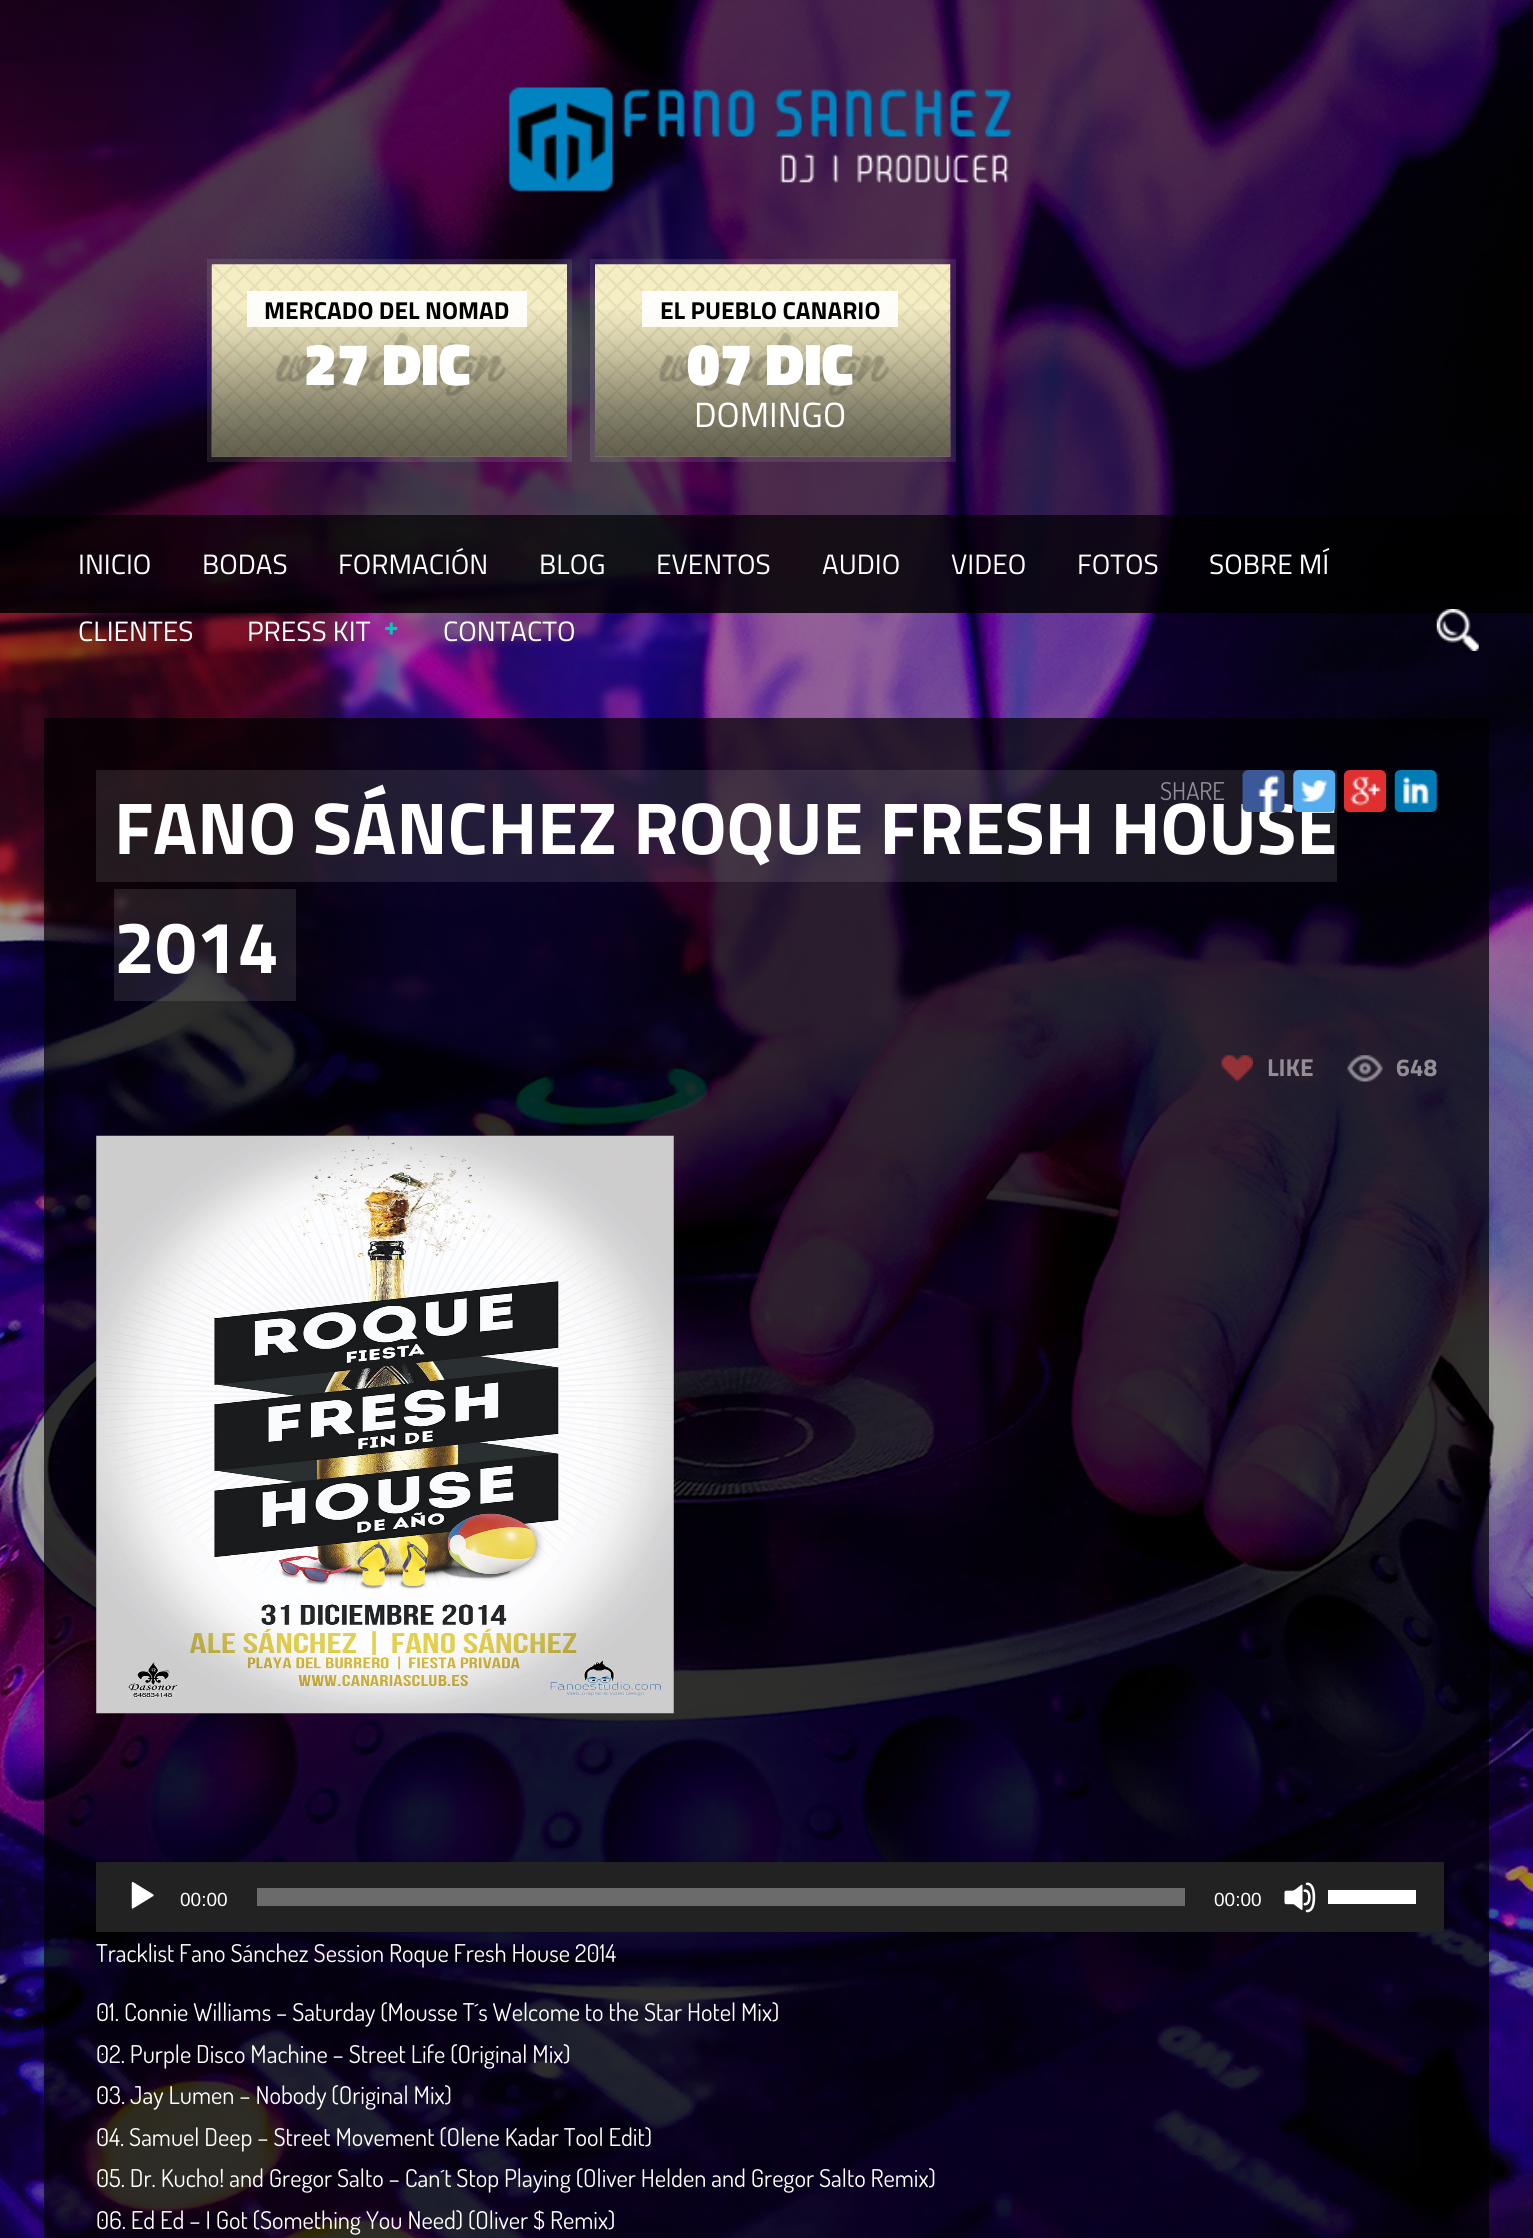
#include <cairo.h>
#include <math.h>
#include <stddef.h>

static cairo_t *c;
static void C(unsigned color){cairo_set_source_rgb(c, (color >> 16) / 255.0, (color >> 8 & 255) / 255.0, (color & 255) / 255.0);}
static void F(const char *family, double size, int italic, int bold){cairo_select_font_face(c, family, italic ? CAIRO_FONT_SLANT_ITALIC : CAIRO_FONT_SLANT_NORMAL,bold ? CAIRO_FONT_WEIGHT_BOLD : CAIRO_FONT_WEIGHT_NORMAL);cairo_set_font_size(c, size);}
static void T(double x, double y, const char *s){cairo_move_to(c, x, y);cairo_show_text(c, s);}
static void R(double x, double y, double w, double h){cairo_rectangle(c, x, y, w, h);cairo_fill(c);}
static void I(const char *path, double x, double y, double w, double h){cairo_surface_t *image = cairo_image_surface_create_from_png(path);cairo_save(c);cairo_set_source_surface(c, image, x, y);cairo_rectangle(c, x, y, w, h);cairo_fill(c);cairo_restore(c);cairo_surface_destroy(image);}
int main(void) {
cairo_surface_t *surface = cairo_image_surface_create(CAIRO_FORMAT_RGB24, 1533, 2238);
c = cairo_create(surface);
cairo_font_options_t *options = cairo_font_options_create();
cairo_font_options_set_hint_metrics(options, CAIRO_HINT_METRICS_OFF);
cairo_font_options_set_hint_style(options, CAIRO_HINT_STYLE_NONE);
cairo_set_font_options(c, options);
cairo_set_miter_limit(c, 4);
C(0xffffff);
cairo_paint(c);
I("1.png",0,0,1533,2238);
cairo_set_source_rgba(c,0,0,0,0.7);
R(0,0,1533,613);
I("2.png",508,87,504,105);
cairo_set_source_rgba(c,1,1,1,0.1);
R(207,259,365,203);
I("3.png",211,264,356,193);
I("4.png",211,310,356,147);
cairo_set_source_rgba(c,1,1,1,0.9);
R(247,291,280,36);
F("Titillium Web",24.5,0,1);
C(0x000000);
T(264,319,"MERCADO DEL NOMAD");
F("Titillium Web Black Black",59.5,0,0);
C(0xffffff);
T(304,385,"27 DIC");
cairo_set_source_rgba(c,1,1,1,0.1);
R(590,259,366,203);
I("5.png",595,264,356,193);
I("6.png",595,310,356,147);
cairo_set_source_rgba(c,1,1,1,0.9);
R(642,291,256,36);
F("Titillium Web",24.5,0,1);
C(0x000000);
T(660,319,"EL PUEBLO CANARIO");
F("Titillium Web Black Black",59.5,0,0);
C(0xffffff);
T(687,385,"07 DIC");
F("Titillium Web",35,0,0);
T(694,427,"DOMINGO");
cairo_set_source_rgba(c,0,0,0,0.7);
R(0,515,1533,98);
F("Titillium Web",28,0,0);
C(0xffffff);
T(78,574,"INICIO");
T(202,574,"BODAS");
T(338,574,"FORMACIÓN");
T(539,574,"BLOG");
T(656,574,"EVENTOS");
T(822,574,"AUDIO");
T(951,574,"VIDEO");
T(1077,574,"FOTOS");
T(1209,574,"SOBRE MÍ");
cairo_set_source_rgba(c,0,0,0,0.4);
R(0,613,1533,1625);
C(0xffffff);
T(78,641,"CLIENTES");
T(247,641,"PRESS KIT");
F("Titillium Web",26,0,1);
C(0x00cab6);
T(384,635,"+");
F("Titillium Web",28,0,0);
C(0xffffff);
T(443,641,"CONTACTO");
I("7.png",1436,609,43,42);
cairo_set_source_rgba(c,0,0,0,0.7);
R(44,718,1445,1520);
cairo_set_source_rgba(c,1,1,1,0.1);
R(96,770,1241,112);
F("Titillium Web",73.5,0,1);
C(0xffffff);
T(114,854,"FANO SÁNCHEZ ROQUE FRESH HOUSE");
F("Dosis",24.5,0,0);
C(0x938e96);
T(1160,800,"SHARE");
I("8.png",1242,770,43,42);
I("9.png",1293,770,43,42);
I("10.png",1343,770,44,42);
I("11.png",1394,770,43,42);
cairo_set_source_rgba(c,1,1,1,0.1);
R(114,889,182,112);
F("Titillium Web",73.5,0,1);
C(0xffffff);
T(114,973,"2014");
I("12.png",1221,1055,32,27);
F("Titillium Web",24.5,0,1);
C(0x938e96);
T(1267,1076,"LIKE");
I("13.png",1347,1055,36,27);
T(1396,1076,"648");
I("14.png",96,1135,578,579);
C(0x222222);
R(96,1862,1348,70);
I("15.png",131,1881,23,28);
F("Liberation Sans",19,0,0);
C(0xffffff);
T(180,1906,"00:00");
C(0x6b6b6b);
R(257,1888,928,18);
C(0xffffff);
T(1214,1906,"00:00");
I("16.png",1284,1882,32,31);
R(1328,1890,88,14);
F("Dosis",24.5,0,0);
T(96,1962,"Tracklist Fano Sánchez Session Roque Fresh House 2014");
T(96,2021,"01. Connie Williams – Saturday (Mousse T´s Welcome to the Star Hotel Mix)");
T(96,2063,"02. Purple Disco Machine – Street Life (Original Mix)");
T(96,2104,"03. Jay Lumen – Nobody (Original Mix)");
T(96,2146,"04. Samuel Deep – Street Movement (Olene Kadar Tool Edit)");
T(96,2187,"05. Dr. Kucho! and Gregor Salto – Can´t Stop Playing (Oliver Helden and Gregor Salto Remix)");
T(96,2229,"06. Ed Ed – I Got (Something You Need) (Oliver $ Remix)");
cairo_surface_write_to_png(surface, "o.png");
cairo_font_options_destroy(options);
cairo_destroy(c);
cairo_surface_destroy(surface);
return 0;
}
